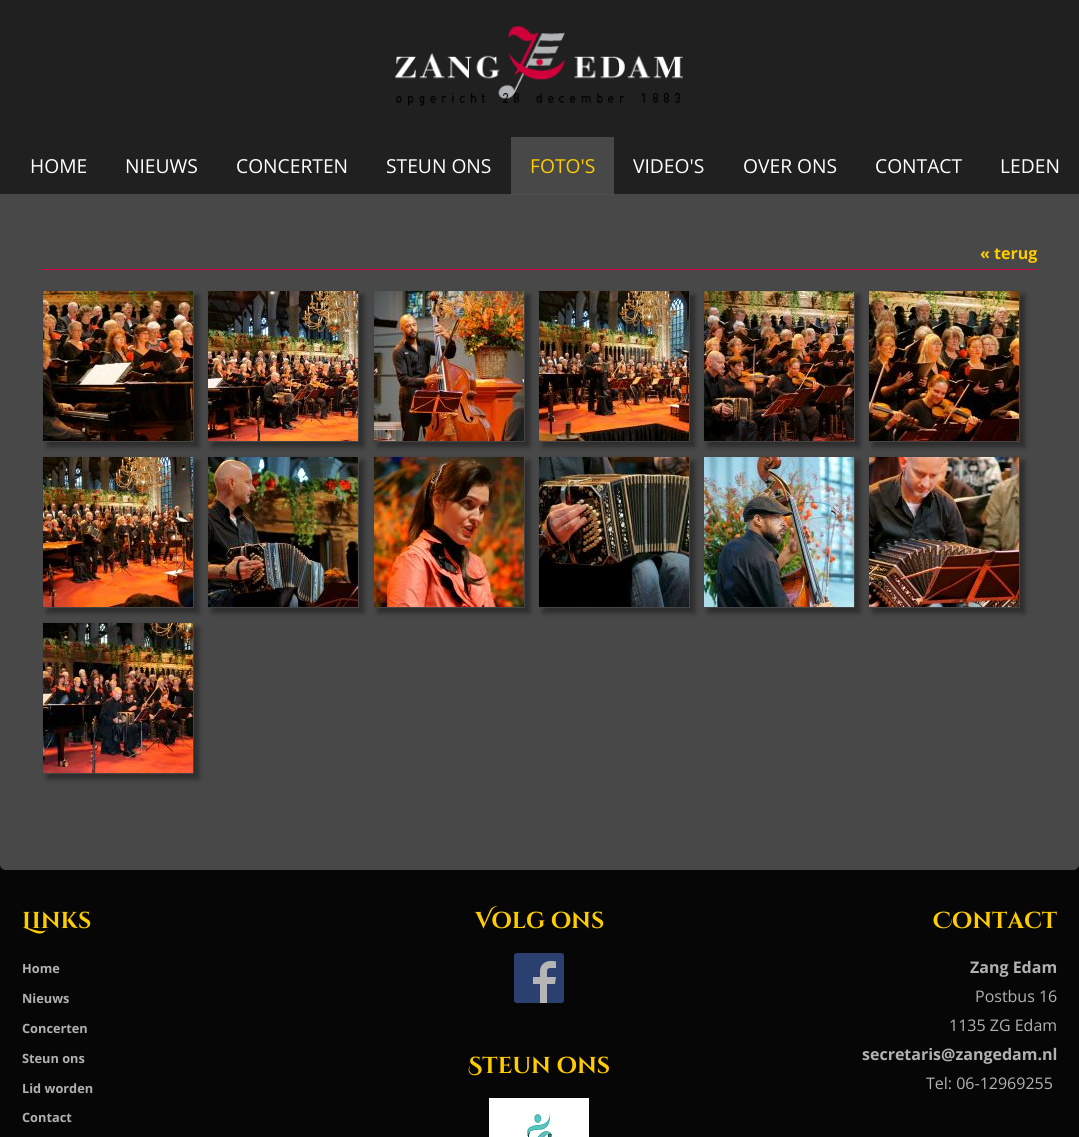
#include <cairo.h>
#include <math.h>
#include <stddef.h>

static cairo_t *c;
static void C(unsigned color){cairo_set_source_rgb(c, (color >> 16) / 255.0, (color >> 8 & 255) / 255.0, (color & 255) / 255.0);}
static void F(const char *family, double size, int italic, int bold){cairo_select_font_face(c, family, italic ? CAIRO_FONT_SLANT_ITALIC : CAIRO_FONT_SLANT_NORMAL,bold ? CAIRO_FONT_WEIGHT_BOLD : CAIRO_FONT_WEIGHT_NORMAL);cairo_set_font_size(c, size);}
static void T(double x, double y, const char *s){cairo_move_to(c, x, y);cairo_show_text(c, s);}
static void R(double x, double y, double w, double h){cairo_rectangle(c, x, y, w, h);cairo_fill(c);}
static void Q(double x, double y, double w, double h, double r){cairo_new_sub_path(c);cairo_arc(c, x + w - r, y + h - r, r, 0, M_PI / 2);cairo_arc(c, x + r, y + h - r, r, M_PI / 2, M_PI);cairo_arc(c, x + r, y + r, r, M_PI, 1.5 * M_PI);cairo_arc(c, x + w - r, y + r, r, 1.5 * M_PI, 2 * M_PI);cairo_close_path(c);}
static void S(double x, double y, double w, double h, double r, double blur, double alpha){cairo_push_group_with_content(c, CAIRO_CONTENT_ALPHA);cairo_set_operator(c, CAIRO_OPERATOR_SOURCE);for (int i = 15; i >= -15 && fmin(w, h) + blur * i / 3 > 0; i -= 2) {double e = blur * i / 6;cairo_set_source_rgba(c, 0, 0, 0, alpha * erfc((i - 1) / 8.5) / 2);Q(x - e, y - e, w + 2 * e, h + 2 * e, fmax(0, fmin(r + e + blur * .6, fmin(w, h) / 2 + e)));cairo_fill(c);}cairo_pattern_t *soft = cairo_pop_group(c);cairo_mask(c, soft);cairo_pattern_destroy(soft);}
static void I(const char *path, double x, double y, double w, double h){cairo_surface_t *image = cairo_image_surface_create_from_png(path);cairo_save(c);cairo_set_source_surface(c, image, x, y);cairo_rectangle(c, x, y, w, h);cairo_fill(c);cairo_restore(c);cairo_surface_destroy(image);}
int main(void) {
cairo_surface_t *surface = cairo_image_surface_create(CAIRO_FORMAT_RGB24, 1079, 1137);
c = cairo_create(surface);
cairo_font_options_t *options = cairo_font_options_create();
cairo_font_options_set_hint_metrics(options, CAIRO_HINT_METRICS_OFF);
cairo_font_options_set_hint_style(options, CAIRO_HINT_STYLE_NONE);
cairo_set_font_options(c, options);
cairo_set_miter_limit(c, 4);
C(0x202020);
cairo_paint(c);
I("1.png",395,26,288,80);
F("Open Sans",19.25,0,0);
C(0xffffff);
T(30,173,"HOME");
T(125,173,"NIEUWS");
T(236,173,"CONCERTEN");
T(386,173,"STEUN ONS");
C(0x060606);
R(0,880,1079,257);
F("Cinzel Decorative",23,0,1);
C(0xffcc00);
T(22,928,"Links");
F("Open Sans",12.75,0,1);
C(0xb1b1b1);
T(22,973,"Home");
F("Cinzel Decorative",23,0,1);
C(0xffcc00);
T(475,928,"Volg ons");
I("15.png",514,953,50,50);
T(933,928,"Contact");
F("Open Sans",16,0,1);
C(0xb1b1b1);
T(970,973,"Zang Edam");
cairo_save(c);
cairo_rectangle(c,0,854,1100,26);
cairo_clip(c);
cairo_new_path(c);
cairo_move_to(c,-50,804);
cairo_line_to(c,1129,804);
cairo_line_to(c,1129,864);
cairo_curve_to(c,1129,895,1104,920,1073,920);
cairo_line_to(c,6,920);
cairo_curve_to(c,-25,920,-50,895,-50,864);
cairo_close_path(c);
C(0x060606);
cairo_set_line_width(c,100);
cairo_stroke(c);
cairo_restore(c);
cairo_set_source_rgba(c,0.322,0.322,0.322,0.79);
cairo_new_path(c);
cairo_move_to(c,0,194);
cairo_line_to(c,1079,194);
cairo_line_to(c,1079,864);
cairo_curve_to(c,1079,867.5,1076.5,870,1073,870);
cairo_line_to(c,6,870);
cairo_curve_to(c,2.5,870,0,867.5,0,864);
cairo_close_path(c);
cairo_fill(c);
R(511,137,103,58);
F("Open Sans",19.25,0,0);
C(0xffcc00);
T(530,173,"FOTO'S");
C(0xffffff);
T(633,173,"VIDEO'S");
T(743,173,"OVER ONS");
T(875,173,"CONTACT");
T(1000,173,"LEDEN");
C(0xd70148);
R(42,269,996,1);
F("Open Sans",16,0,1);
C(0xffcc00);
T(980,259,"« terug");
C(0x2c2c2c);
S(47,295,152,152,0,2.5,1);
cairo_rectangle(c,42.5,290.5,151,151);
C(0x454545);
cairo_set_line_width(c,1);
cairo_stroke(c);
I("2.png",43,291,150,150);
C(0x2c2c2c);
S(212,295,152,152,0,2.5,1);
cairo_rectangle(c,207.5,290.5,151,151);
C(0x454545);
cairo_stroke(c);
I("3.png",208,291,150,150);
C(0x2c2c2c);
S(378,295,152,152,0,2.5,1);
cairo_rectangle(c,373.5,290.5,151,151);
C(0x454545);
cairo_stroke(c);
I("4.png",374,291,150,150);
C(0x2c2c2c);
S(543,295,152,152,0,2.5,1);
cairo_rectangle(c,538.5,290.5,151,151);
C(0x454545);
cairo_stroke(c);
I("5.png",539,291,150,150);
C(0x2c2c2c);
S(708,295,152,152,0,2.5,1);
cairo_rectangle(c,703.5,290.5,151,151);
C(0x454545);
cairo_stroke(c);
I("6.png",704,291,150,150);
C(0x2c2c2c);
S(873,295,152,152,0,2.5,1);
cairo_rectangle(c,868.5,290.5,151,151);
C(0x454545);
cairo_stroke(c);
I("7.png",869,291,150,150);
C(0x2c2c2c);
S(47,461,152,152,0,2.5,1);
cairo_rectangle(c,42.5,456.5,151,151);
C(0x454545);
cairo_stroke(c);
I("8.png",43,457,150,150);
C(0x2c2c2c);
S(212,461,152,152,0,2.5,1);
cairo_rectangle(c,207.5,456.5,151,151);
C(0x454545);
cairo_stroke(c);
I("9.png",208,457,150,150);
C(0x2c2c2c);
S(378,461,152,152,0,2.5,1);
cairo_rectangle(c,373.5,456.5,151,151);
C(0x454545);
cairo_stroke(c);
I("10.png",374,457,150,150);
C(0x2c2c2c);
S(543,461,152,152,0,2.5,1);
cairo_rectangle(c,538.5,456.5,151,151);
C(0x454545);
cairo_stroke(c);
I("11.png",539,457,150,150);
C(0x2c2c2c);
S(708,461,152,152,0,2.5,1);
cairo_rectangle(c,703.5,456.5,151,151);
C(0x454545);
cairo_stroke(c);
I("12.png",704,457,150,150);
C(0x2c2c2c);
S(873,461,152,152,0,2.5,1);
cairo_rectangle(c,868.5,456.5,151,151);
C(0x454545);
cairo_stroke(c);
I("13.png",869,457,150,150);
C(0x2c2c2c);
S(47,627,152,152,0,2.5,1);
cairo_rectangle(c,42.5,622.5,151,151);
C(0x454545);
cairo_stroke(c);
I("14.png",43,623,150,150);
F("Open Sans",12.75,0,1);
C(0xb1b1b1);
T(22,1003,"Nieuws");
T(22,1033,"Concerten");
T(22,1063,"Steun ons");
T(22,1093,"Lid worden");
T(22,1122,"Contact");
F("Cinzel Decorative",23,0,1);
C(0xffcc00);
T(468,1073,"Steun ons");
I("16.png",489,1098,100,39);
F("Open Sans",16,0,0);
C(0xb1b1b1);
T(975,1002,"Postbus 16");
T(949,1031,"1135 ZG Edam");
F("Open Sans",16,0,1);
T(862,1060,"secretaris@zangedam.nl");
F("Open Sans",16,0,0);
T(926,1089,"Tel: 06-12969255");
cairo_surface_write_to_png(surface, "o.png");
cairo_font_options_destroy(options);
cairo_destroy(c);
cairo_surface_destroy(surface);
return 0;
}
